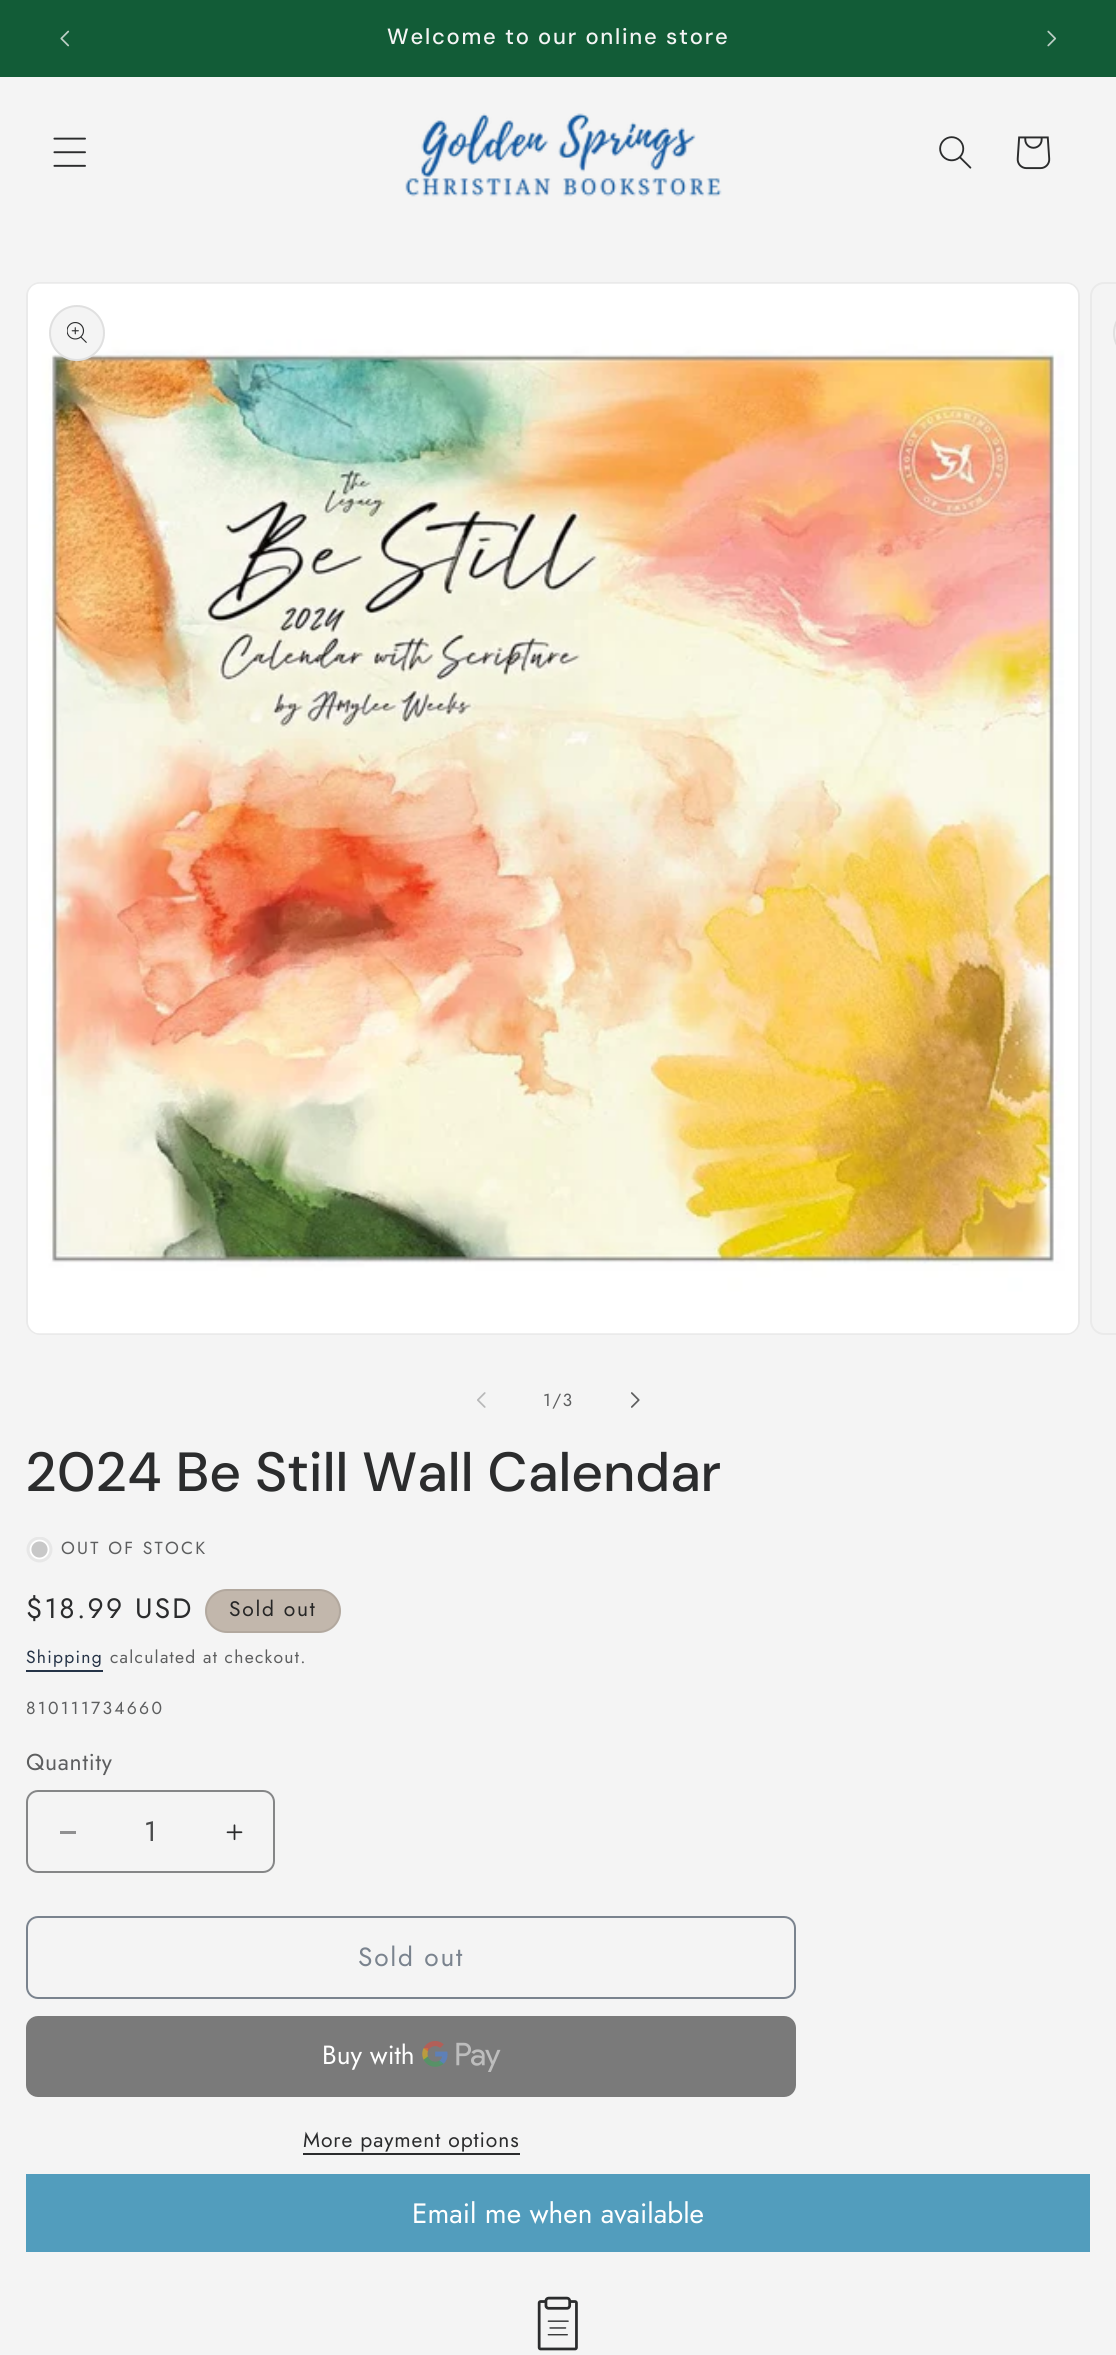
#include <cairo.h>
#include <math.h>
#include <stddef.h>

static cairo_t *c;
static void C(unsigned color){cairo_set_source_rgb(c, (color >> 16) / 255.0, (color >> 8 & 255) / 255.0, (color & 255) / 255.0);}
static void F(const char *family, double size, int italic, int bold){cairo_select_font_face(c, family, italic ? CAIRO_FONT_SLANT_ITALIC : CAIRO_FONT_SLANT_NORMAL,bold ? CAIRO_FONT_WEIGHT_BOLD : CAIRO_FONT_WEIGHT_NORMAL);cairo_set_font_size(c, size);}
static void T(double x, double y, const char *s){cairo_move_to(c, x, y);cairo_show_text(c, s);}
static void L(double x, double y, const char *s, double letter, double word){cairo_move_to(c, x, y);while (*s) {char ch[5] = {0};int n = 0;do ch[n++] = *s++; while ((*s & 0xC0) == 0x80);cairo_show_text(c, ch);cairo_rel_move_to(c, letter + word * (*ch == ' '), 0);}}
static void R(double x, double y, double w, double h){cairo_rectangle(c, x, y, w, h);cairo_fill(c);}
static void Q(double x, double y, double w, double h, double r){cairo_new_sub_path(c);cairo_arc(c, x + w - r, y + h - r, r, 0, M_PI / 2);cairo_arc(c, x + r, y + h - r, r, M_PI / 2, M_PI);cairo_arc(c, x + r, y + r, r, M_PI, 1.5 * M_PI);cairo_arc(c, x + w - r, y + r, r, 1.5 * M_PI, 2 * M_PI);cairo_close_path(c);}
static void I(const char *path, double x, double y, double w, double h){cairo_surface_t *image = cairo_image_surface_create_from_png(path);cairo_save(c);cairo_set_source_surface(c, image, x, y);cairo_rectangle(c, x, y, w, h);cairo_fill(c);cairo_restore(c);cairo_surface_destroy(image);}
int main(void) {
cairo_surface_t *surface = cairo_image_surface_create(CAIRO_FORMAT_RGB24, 1116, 2355);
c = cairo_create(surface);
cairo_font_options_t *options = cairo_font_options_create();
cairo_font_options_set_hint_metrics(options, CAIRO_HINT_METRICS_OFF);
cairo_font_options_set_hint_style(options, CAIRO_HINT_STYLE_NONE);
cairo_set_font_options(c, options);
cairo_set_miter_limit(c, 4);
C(0xf4f4f4);
cairo_paint(c);
C(0x125c37);
R(0,0,1116,77);
I("1.png",60,30,10,17);
F("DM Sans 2 Medium",22,0,0);
C(0xf4f4f4);
L(387,44,"Welcome to our online store",1.75,0);
I("2.png",1047,30,10,17);
I("3.png",53,137,33,30);
I("4.png",405,113,317,84);
I("5.png",939,136,33,33);
I("6.png",1016,136,35,34);
Q(27,283,1052,1051,13);
C(0xeaeaea);
cairo_stroke(c);
I("7.png",28,283,1050,1051);
C(0xf4f4f4);
cairo_arc(c,77,333,28,0,2 * M_PI);
cairo_fill(c);
cairo_arc(c,77,333,27,0,2 * M_PI);
cairo_set_source_rgba(c,0.169,0.173,0.176,0.1);
cairo_stroke(c);
I("8.png",67,322,20,21);
Q(1091,283,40,1051,13);
C(0xeaeaea);
cairo_stroke(c);
Q(1114,306,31,54,27);
C(0xe0e0e0);
cairo_stroke(c);
I("9.png",477,1392,9,16);
F("Jost",17.5,0,0);
C(0x5d5e5f);
L(543,1406,"1/3",1.25,0);
I("10.png",631,1392,9,16);
F("DM Sans Medium",55.1,0,0);
C(0x2b2c2d);
L(26,1491,"2024 Be Still Wall Calendar",1.1,0);
cairo_save(c);
cairo_rectangle(c,26,1537,27,26);
cairo_clip(c);
C(0xe7e7e7);
cairo_arc(c,39.5,1549.5,13,0,2 * M_PI);
cairo_fill(c);
cairo_restore(c);
C(0xc8c8c8);
cairo_arc(c,39.5,1549.5,9,0,2 * M_PI);
cairo_fill_preserve(c);
C(0xffffff);
cairo_set_line_width(c,1.8);
cairo_stroke(c);
F("Jost",17.5,0,0);
C(0x5d5e5f);
L(61,1554,"OUT OF STOCK",2.25,0);
F("Jost",28,0,0);
C(0x2b2c2d);
L(26,1618,"$18.99 USD",2.25,0);
C(0xc2b7ac);
Q(205,1589,136,44,22);
cairo_fill(c);
Q(206,1590,134,42,21);
cairo_set_source_rgba(c,0.149,0.149,0.149,0.1);
cairo_set_line_width(c,2);
cairo_stroke(c);
F("Jost",21,0,0);
C(0x262626);
L(229,1616,"Sold out",1.75,0);
F("Jost",17.5,0,0);
C(0x253347);
L(26,1663,"Shipping",1.25,0);
R(26,1670,77,2);
C(0x5d5e5f);
L(110,1663,"calculated at checkout.",1.25,0);
L(26,1714,"810111734660",2.25,0);
F("Jost",23,0,0);
L(26,1770,"Quantity",.75,0);
C(0x909091);
R(60,1831,16,3);
I("11.png",226,1824,17,17);
Q(27,1791,247,81,11);
C(0x858687);
cairo_stroke(c);
F("Jost",28,0,0);
C(0x494a4b);
T(144,1841,"1");
Q(27,1917,768,81,11);
C(0x7a838e);
cairo_stroke(c);
F("Jost",26.25,0,0);
L(358,1966,"Sold out",1.75,0);
C(0x7a7a7a);
Q(26,2016,770,81,12);
cairo_fill(c);
C(0xffffff);
T(322,2064,"Buy with");
I("12.png",422,2041,79,31);
F("Jost",21,0,0);
C(0x2b2c2d);
L(303,2147,"More payment options",.9,0);
R(303,2153,217,2);
C(0x529dbd);
R(26,2174,1064,78);
F("Jost",28,0,0);
C(0xffffff);
T(412,2223,"Email me when available");
I("13.png",537,2296,41,55);
cairo_surface_write_to_png(surface, "o.png");
cairo_font_options_destroy(options);
cairo_destroy(c);
cairo_surface_destroy(surface);
return 0;
}
